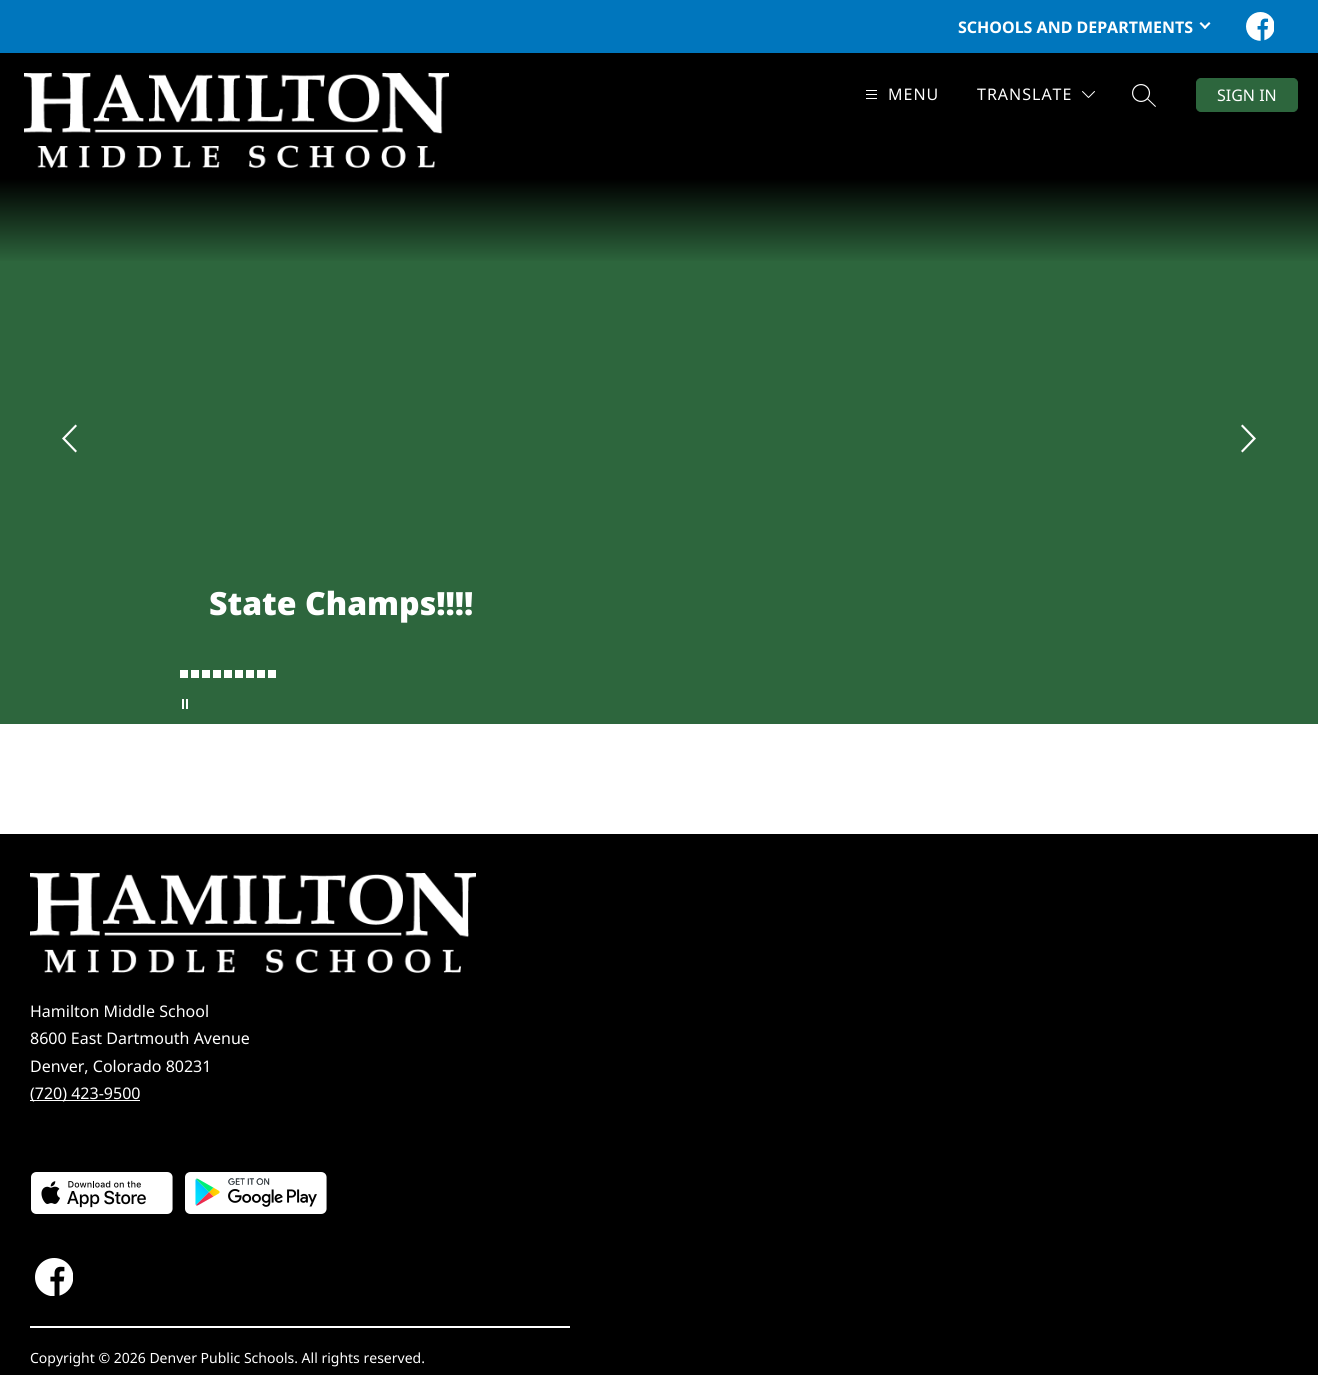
#include <cairo.h>
#include <math.h>
#include <stddef.h>

static cairo_t *c;
static void C(unsigned color){cairo_set_source_rgb(c, (color >> 16) / 255.0, (color >> 8 & 255) / 255.0, (color & 255) / 255.0);}
static void F(const char *family, double size, int italic, int bold){cairo_select_font_face(c, family, italic ? CAIRO_FONT_SLANT_ITALIC : CAIRO_FONT_SLANT_NORMAL,bold ? CAIRO_FONT_WEIGHT_BOLD : CAIRO_FONT_WEIGHT_NORMAL);cairo_set_font_size(c, size);}
static void T(double x, double y, const char *s){cairo_move_to(c, x, y);cairo_show_text(c, s);}
static void L(double x, double y, const char *s, double letter, double word){cairo_move_to(c, x, y);while (*s) {char ch[5] = {0};int n = 0;do ch[n++] = *s++; while ((*s & 0xC0) == 0x80);cairo_show_text(c, ch);cairo_rel_move_to(c, letter + word * (*ch == ' '), 0);}}
static void R(double x, double y, double w, double h){cairo_rectangle(c, x, y, w, h);cairo_fill(c);}
static void Q(double x, double y, double w, double h, double r){cairo_new_sub_path(c);cairo_arc(c, x + w - r, y + h - r, r, 0, M_PI / 2);cairo_arc(c, x + r, y + h - r, r, M_PI / 2, M_PI);cairo_arc(c, x + r, y + r, r, M_PI, 1.5 * M_PI);cairo_arc(c, x + w - r, y + r, r, 1.5 * M_PI, 2 * M_PI);cairo_close_path(c);}
static void I(const char *path, double x, double y, double w, double h){cairo_surface_t *image = cairo_image_surface_create_from_png(path);cairo_save(c);cairo_set_source_surface(c, image, x, y);cairo_rectangle(c, x, y, w, h);cairo_fill(c);cairo_restore(c);cairo_surface_destroy(image);}
int main(void) {
cairo_surface_t *surface = cairo_image_surface_create(CAIRO_FORMAT_RGB24, 1318, 1375);
c = cairo_create(surface);
cairo_font_options_t *options = cairo_font_options_create();
cairo_font_options_set_hint_metrics(options, CAIRO_HINT_METRICS_OFF);
cairo_font_options_set_hint_style(options, CAIRO_HINT_STYLE_NONE);
cairo_set_font_options(c, options);
cairo_set_miter_limit(c, 4);
cairo_pattern_t *gradient;
C(0xffffff);
cairo_paint(c);
C(0x0076bd);
R(0,0,1318,53);
F("Noto Sans",16,0,1);
C(0xffffff);
T(958,33,"SCHOOLS AND DEPARTMENTS");
cairo_new_path(c);
cairo_move_to(c,1209,22);
cairo_line_to(c,1210.5,23.5);
cairo_line_to(c,1205,29);
cairo_line_to(c,1203.5,27.5);
cairo_close_path(c);
cairo_fill(c);
cairo_new_path(c);
cairo_move_to(c,1201,22);
cairo_line_to(c,1206.5,27.5);
cairo_line_to(c,1205,29);
cairo_line_to(c,1199.5,23.5);
cairo_close_path(c);
cairo_fill(c);
I("1.png",1246,12,28,29);
C(0x2d663d);
R(0,179,1318,545);
gradient = cairo_pattern_create_linear(659,53,659,263);
cairo_pattern_add_color_stop_rgba(gradient,.6,0,0,0,1);
cairo_pattern_add_color_stop_rgba(gradient,1,0,0,0,0);
cairo_set_source(c,gradient);
cairo_pattern_destroy(gradient);
R(0,53,1318,208);
I("2.png",24,73,425,95);
I("3.png",866,90,11,9);
F("Noto Sans",16,0,0);
C(0xffffff);
L(888,100,"MENU",1,0);
L(977,100,"TRANSLATE",1,0);
I("4.png",1082,91,13,7);
I("5.png",1132,84,24,23);
C(0x2d663d);
Q(1196.5,78.5,101,33,4.5);
cairo_fill_preserve(c);
cairo_set_line_width(c,1);
cairo_stroke(c);
C(0xffffff);
T(1217,101,"SIGN IN");
cairo_set_fill_rule(c,CAIRO_FILL_RULE_EVEN_ODD);
cairo_new_path(c);
cairo_move_to(c,65,438.5);
cairo_line_to(c,77,426);
cairo_line_to(c,75.5,424.5);
cairo_line_to(c,62,438.5);
cairo_line_to(c,75.5,452.5);
cairo_line_to(c,77,451);
cairo_close_path(c);
cairo_fill(c);
cairo_new_path(c);
cairo_move_to(c,1253,438.5);
cairo_line_to(c,1241,451);
cairo_line_to(c,1242.5,452.5);
cairo_line_to(c,1256,438.5);
cairo_line_to(c,1242.5,424.5);
cairo_line_to(c,1241,426);
cairo_close_path(c);
cairo_fill(c);
R(180,670,8,8);
R(191,670,8,8);
R(202,670,8,8);
R(213,670,8,8);
R(224,670,8,8);
R(235,670,8,8);
R(246,670,8,8);
R(257,670,8,8);
R(268,670,8,8);
cairo_new_path(c);
cairo_move_to(c,184,699);
cairo_line_to(c,182,699);
cairo_line_to(c,182,709);
cairo_line_to(c,184,709);
cairo_close_path(c);
cairo_move_to(c,188,699);
cairo_line_to(c,186,699);
cairo_line_to(c,186,709);
cairo_line_to(c,188,709);
cairo_close_path(c);
cairo_fill(c);
F("Noto Sans Black",32,0,0);
T(209,615,"State Champs!!!!");
C(0x000000);
R(0,834,1318,541);
I("6.png",30,873,446,100);
F("Noto Sans",16,0,0);
C(0xffffff);
T(30,1017,"Hamilton Middle School");
T(30,1044,"8600 East Dartmouth Avenue");
T(30,1072,"Denver, Colorado 80231");
R(30,1100,110,1);
T(30,1099,"(720) 423-9500");
I("7.png",31,1172,142,42);
I("8.png",185,1172,142,42);
I("9.png",35,1258,38,38);
R(30,1326,540,2);
F("Noto Sans",14,0,0);
T(30,1363,"Copyright © 2026 Denver Public Schools. All rights reserved.");
cairo_surface_write_to_png(surface, "o.png");
cairo_font_options_destroy(options);
cairo_destroy(c);
cairo_surface_destroy(surface);
return 0;
}
